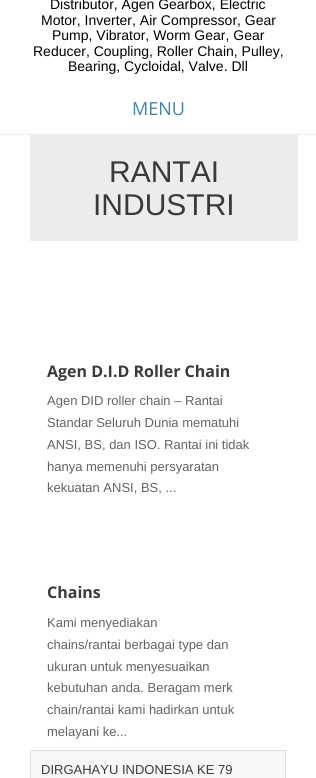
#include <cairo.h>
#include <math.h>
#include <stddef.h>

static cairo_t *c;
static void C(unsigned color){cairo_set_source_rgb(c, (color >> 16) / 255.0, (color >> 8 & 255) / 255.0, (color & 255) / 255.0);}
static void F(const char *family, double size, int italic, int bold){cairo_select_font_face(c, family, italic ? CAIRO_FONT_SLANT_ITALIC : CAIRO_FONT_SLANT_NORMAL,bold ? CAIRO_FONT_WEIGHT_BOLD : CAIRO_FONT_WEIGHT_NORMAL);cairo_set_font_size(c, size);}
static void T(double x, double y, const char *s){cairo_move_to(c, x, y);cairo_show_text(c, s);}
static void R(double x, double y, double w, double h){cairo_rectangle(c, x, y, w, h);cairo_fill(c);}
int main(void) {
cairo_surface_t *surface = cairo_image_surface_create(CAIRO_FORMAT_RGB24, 316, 778);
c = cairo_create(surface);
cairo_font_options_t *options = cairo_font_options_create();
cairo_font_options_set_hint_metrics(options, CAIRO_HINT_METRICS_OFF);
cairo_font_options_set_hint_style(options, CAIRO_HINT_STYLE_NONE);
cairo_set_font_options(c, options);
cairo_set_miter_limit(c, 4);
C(0xffffff);
cairo_paint(c);
C(0xeeeeee);
R(0,134,316,1);
F("Liberation Sans",14,0,0);
C(0x000000);
T(50,9,"Distributor, Agen Gearbox, Electric");
T(41,25,"Motor, Inverter, Air Compressor, Gear");
T(52,40,"Pump, Vibrator, Worm Gear, Gear");
T(33,56,"Reducer, Coupling, Roller Chain, Pulley,");
T(68,71,"Bearing, Cycloidal, Valve. Dll");
F("Open Sans",18,0,0);
C(0x3a85ae);
T(132,115,"MENU");
C(0xececec);
R(30,135,268,106);
F("Liberation Sans",30,0,0);
C(0x3a3a3a);
T(109,182,"RANTAI");
T(93,215,"INDUSTRI");
F("Open Sans",16,0,1);
T(47,377,"Agen D.I.D Roller Chain");
F("Liberation Sans",13,0,0);
C(0x636363);
T(47,405,"Agen DID roller chain – Rantai");
T(47,427,"Standar Seluruh Dunia mematuhi");
T(47,449,"ANSI, BS, dan ISO. Rantai ini tidak");
T(47,471,"hanya memenuhi persyaratan");
T(47,492,"kekuatan ANSI, BS, ...");
F("Open Sans",16,0,1);
C(0x3a3a3a);
T(47,598,"Chains");
F("Liberation Sans",13,0,0);
C(0x636363);
T(47,627,"Kami menyediakan");
T(47,649,"chains/rantai berbagai type dan");
T(47,671,"ukuran untuk menyesuaikan");
T(47,692,"kebutuhan anda. Beragam merk");
T(47,714,"chain/rantai kami hadirkan untuk");
T(47,736,"melayani ke...");
C(0xf7f7f7);
cairo_rectangle(c,30.5,750.5,255,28);
cairo_fill_preserve(c);
C(0xe0e0e0);
cairo_set_line_width(c,1);
cairo_stroke(c);
C(0x3a3a3a);
T(41,774,"DIRGAHAYU INDONESIA KE 79");
cairo_surface_write_to_png(surface, "o.png");
cairo_font_options_destroy(options);
cairo_destroy(c);
cairo_surface_destroy(surface);
return 0;
}
